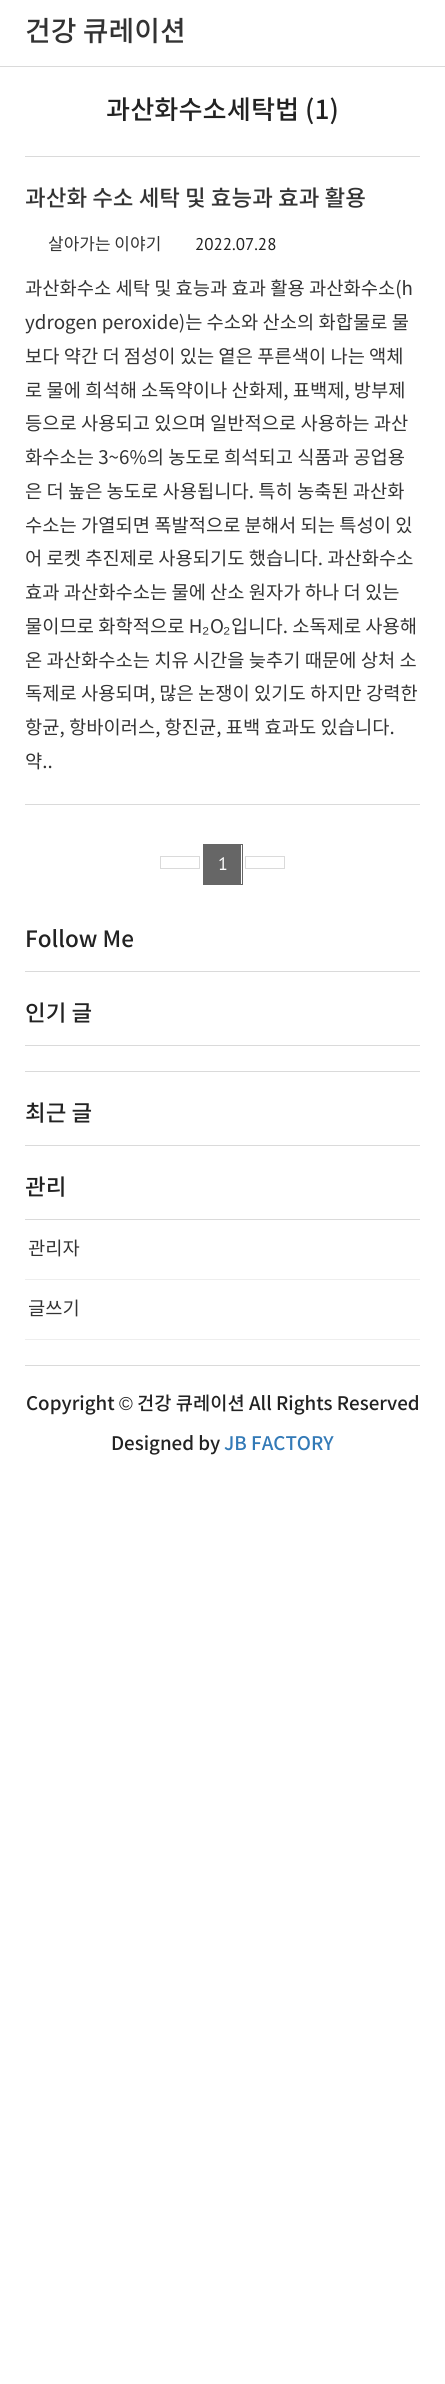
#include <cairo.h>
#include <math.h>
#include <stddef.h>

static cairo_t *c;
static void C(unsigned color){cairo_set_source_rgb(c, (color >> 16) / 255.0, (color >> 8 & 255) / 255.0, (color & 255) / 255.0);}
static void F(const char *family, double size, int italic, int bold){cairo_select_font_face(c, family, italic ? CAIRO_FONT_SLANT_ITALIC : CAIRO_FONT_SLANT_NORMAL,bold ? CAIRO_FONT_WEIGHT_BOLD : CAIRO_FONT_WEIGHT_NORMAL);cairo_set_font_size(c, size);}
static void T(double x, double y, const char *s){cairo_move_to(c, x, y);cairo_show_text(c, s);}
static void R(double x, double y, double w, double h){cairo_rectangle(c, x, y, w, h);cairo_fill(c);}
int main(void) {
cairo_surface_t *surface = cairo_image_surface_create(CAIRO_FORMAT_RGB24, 445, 2384);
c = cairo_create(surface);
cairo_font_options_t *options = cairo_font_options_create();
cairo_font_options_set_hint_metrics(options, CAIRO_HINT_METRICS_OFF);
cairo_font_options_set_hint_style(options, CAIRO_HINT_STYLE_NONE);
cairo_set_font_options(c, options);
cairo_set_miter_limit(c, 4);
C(0xffffff);
cairo_paint(c);
F("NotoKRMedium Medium",28,0,0);
C(0x333333);
T(25,41,"건강 큐레이션");
C(0xdadada);
R(0,66,445,1);
R(25,156,395,1);
F("NotoKRMedium Medium",26.25,0,0);
C(0x222222);
T(106,119,"과산화수소세탁법 (1)");
C(0xdadada);
R(25,804,395,1);
F("NotoKRMedium Medium",22.5,0,0);
C(0x333333);
T(25,206,"과산화 수소 세탁 및 효능과 효과 활용");
F("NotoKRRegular",17,0,0);
T(48,250,"살아가는 이야기");
F("PT Sans",17,0,0);
C(0x222222);
T(195,250,"2022.07.28");
F("NotoKRRegular",18.75,0,0);
C(0x333333);
T(25,295,"과산화수소 세탁 및 효능과 효과 활용 과산화수소(h");
T(25,329,"ydrogen peroxide)는 수소와 산소의 화합물로 물");
T(25,363,"보다 약간 더 점성이 있는 옅은 푸른색이 나는 액체");
T(25,397,"로 물에 희석해 소독약이나 산화제, 표백제, 방부제");
T(25,430,"등으로 사용되고 있으며 일반적으로 사용하는 과산");
T(25,464,"화수소는 3~6%의 농도로 희석되고 식품과 공업용");
T(25,498,"은 더 높은 농도로 사용됩니다. 특히 농축된 과산화");
T(25,532,"수소는 가열되면 폭발적으로 분해서 되는 특성이 있");
T(25,565,"어 로켓 추진제로 사용되기도 했습니다. 과산화수소");
T(25,599,"효과 과산화수소는 물에 산소 원자가 하나 더 있는");
T(25,633,"물이므로 화학적으로 H");
F("Liberation Sans",18.75,0,0);
T(202,633,"₂");
F("NotoKRRegular",18.75,0,0);
T(210,633,"O");
F("Liberation Sans",18.75,0,0);
T(223,633,"₂");
F("NotoKRRegular",18.75,0,0);
T(231,633,"입니다. 소독제로 사용해");
T(25,667,"온 과산화수소는 치유 시간을 늦추기 때문에 상처 소");
T(25,700,"독제로 사용되며, 많은 논쟁이 있기도 하지만 강력한");
T(25,734,"항균, 항바이러스, 항진균, 표백 효과도 있습니다.");
T(25,768,"약..");
cairo_rectangle(c,160.5,856.5,39,12);
C(0xdadada);
cairo_set_line_width(c,1);
cairo_stroke(c);
cairo_rectangle(c,203.5,844.5,39,40);
C(0x666666);
cairo_stroke(c);
R(204,845,37,39);
F("PT Sans",18,0,0);
C(0xffffff);
T(218,870,"1");
cairo_rectangle(c,245.5,856.5,39,12);
C(0xdadada);
cairo_stroke(c);
R(25,971,395,1);
F("NotoKRMedium Medium",22.5,0,0);
C(0x222222);
T(25,947,"Follow Me");
C(0xdadada);
R(25,1045,395,1);
C(0x222222);
T(25,1021,"인기 글");
C(0xdadada);
R(25,1071,395,1);
R(25,1145,395,1);
C(0x222222);
T(25,1121,"최근 글");
C(0xdadada);
R(25,1219,395,1);
C(0x222222);
T(25,1195,"관리");
C(0xeeeeee);
R(25,1279,395,1);
F("NotoKRRegular",18.75,0,0);
C(0x333333);
T(28,1255,"관리자");
C(0xeeeeee);
R(25,1339,395,1);
C(0x333333);
T(28,1315,"글쓰기");
C(0xdadada);
R(25,1365,395,1);
F("NotoKRMedium Medium",18.75,0,0);
C(0x222222);
T(26,1410,"Copyright");
F("Liberation Sans",18.75,0,0);
T(119,1410,"©");
F("NotoKRMedium Medium",18.75,0,0);
T(137,1410,"건강 큐레이션 All Rights Reserved");
T(111,1450,"Designed by");
C(0x337ab7);
T(224,1450,"JB FACTORY");
cairo_surface_write_to_png(surface, "o.png");
cairo_font_options_destroy(options);
cairo_destroy(c);
cairo_surface_destroy(surface);
return 0;
}
